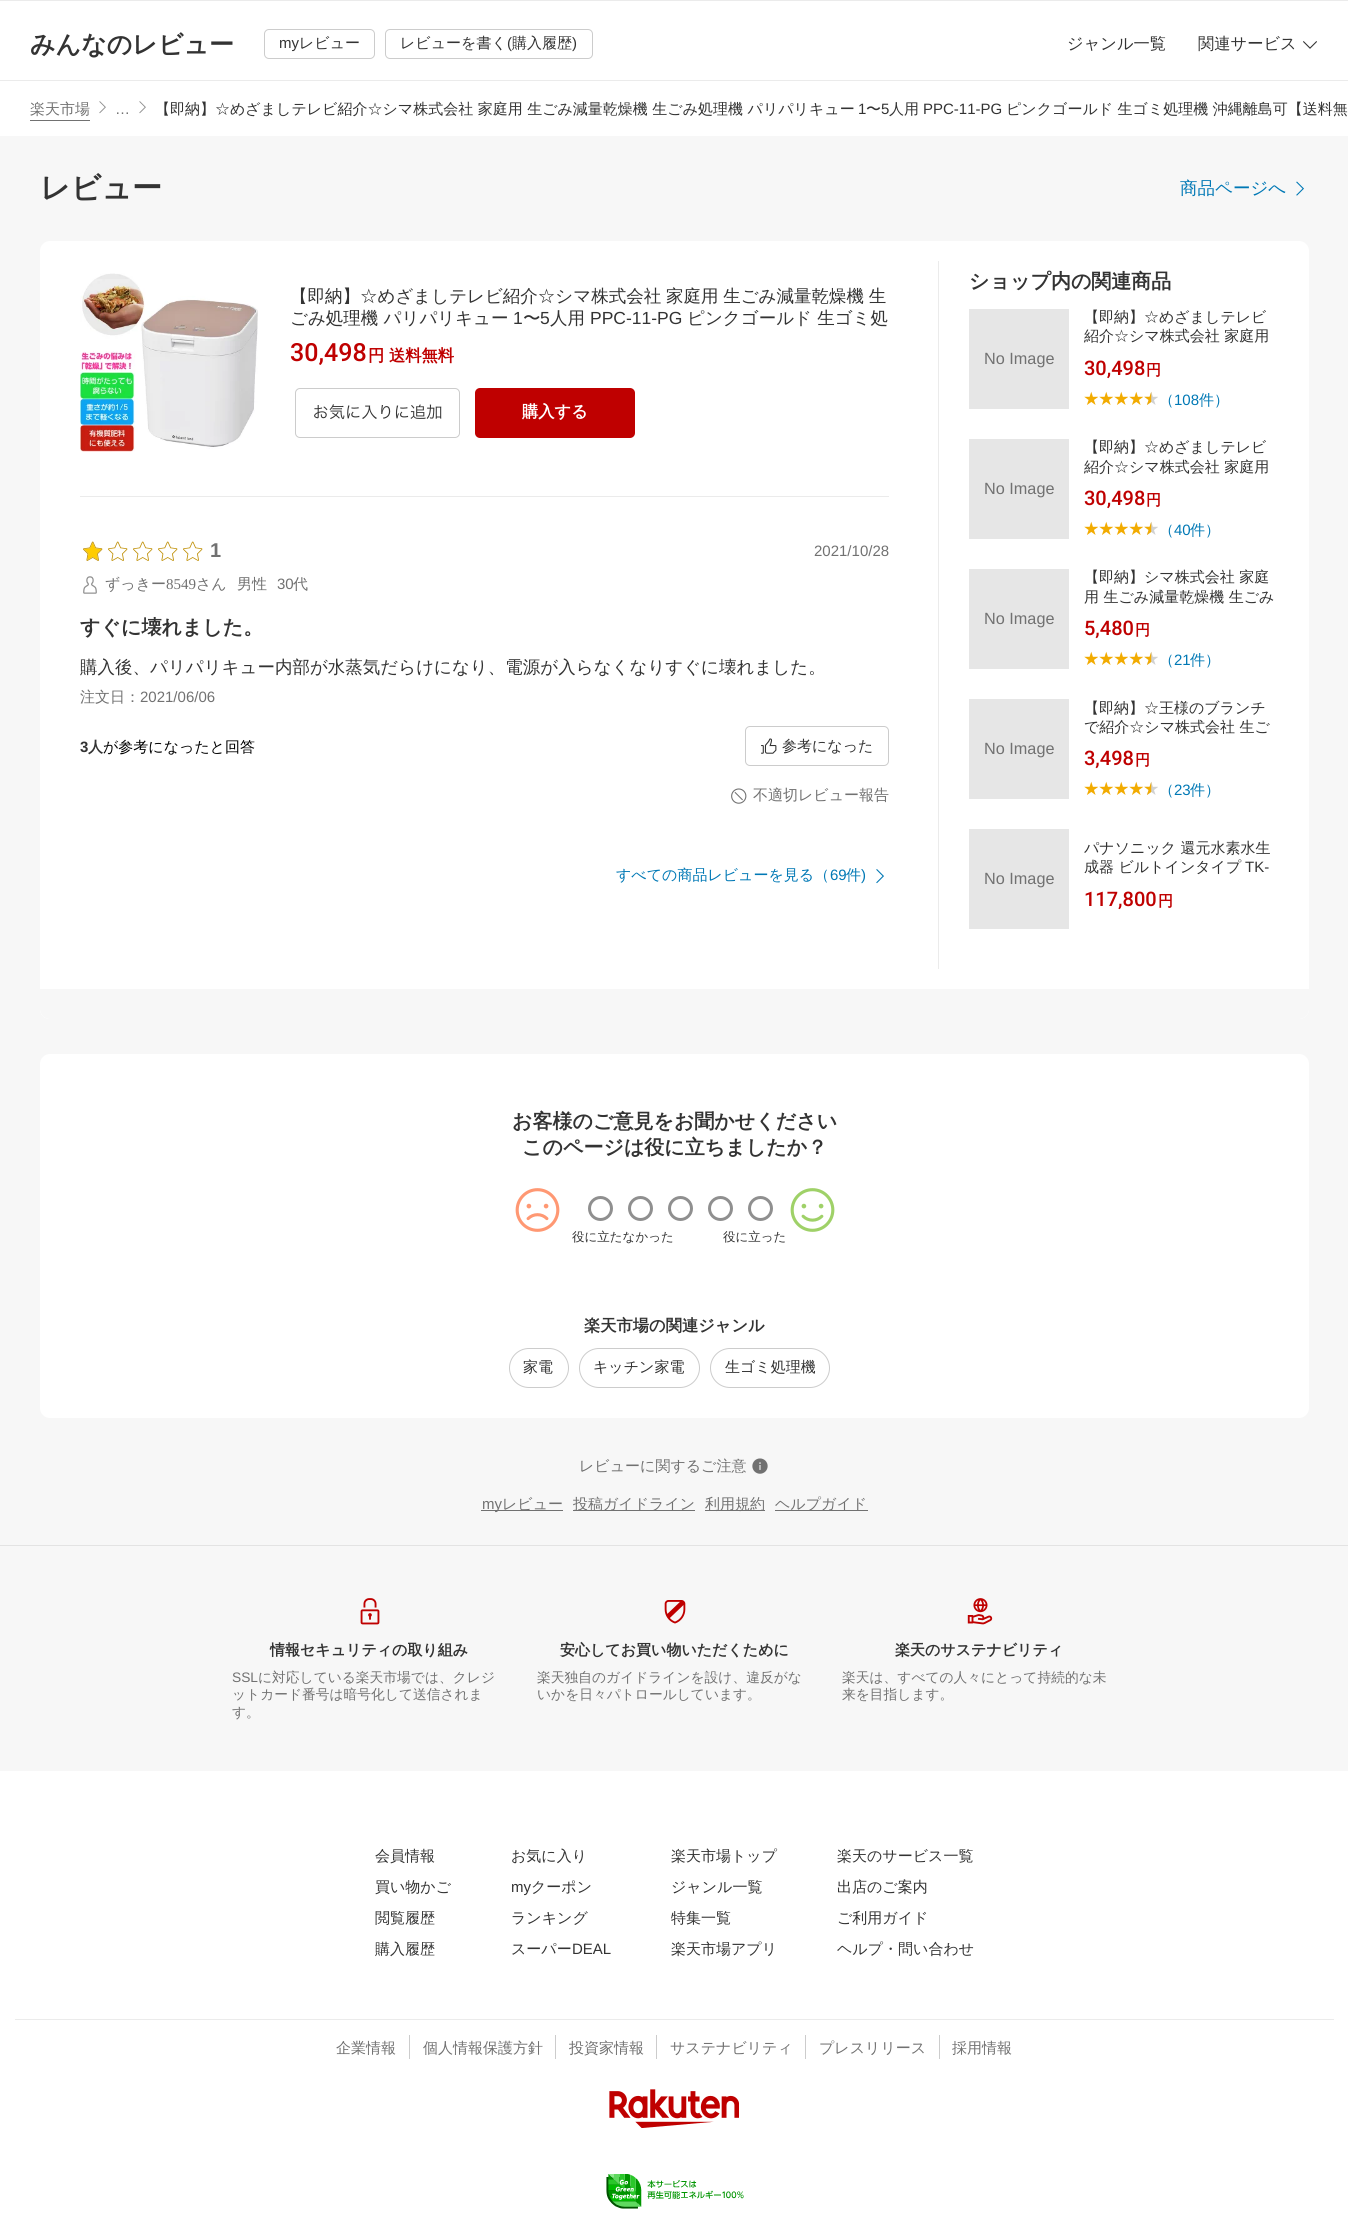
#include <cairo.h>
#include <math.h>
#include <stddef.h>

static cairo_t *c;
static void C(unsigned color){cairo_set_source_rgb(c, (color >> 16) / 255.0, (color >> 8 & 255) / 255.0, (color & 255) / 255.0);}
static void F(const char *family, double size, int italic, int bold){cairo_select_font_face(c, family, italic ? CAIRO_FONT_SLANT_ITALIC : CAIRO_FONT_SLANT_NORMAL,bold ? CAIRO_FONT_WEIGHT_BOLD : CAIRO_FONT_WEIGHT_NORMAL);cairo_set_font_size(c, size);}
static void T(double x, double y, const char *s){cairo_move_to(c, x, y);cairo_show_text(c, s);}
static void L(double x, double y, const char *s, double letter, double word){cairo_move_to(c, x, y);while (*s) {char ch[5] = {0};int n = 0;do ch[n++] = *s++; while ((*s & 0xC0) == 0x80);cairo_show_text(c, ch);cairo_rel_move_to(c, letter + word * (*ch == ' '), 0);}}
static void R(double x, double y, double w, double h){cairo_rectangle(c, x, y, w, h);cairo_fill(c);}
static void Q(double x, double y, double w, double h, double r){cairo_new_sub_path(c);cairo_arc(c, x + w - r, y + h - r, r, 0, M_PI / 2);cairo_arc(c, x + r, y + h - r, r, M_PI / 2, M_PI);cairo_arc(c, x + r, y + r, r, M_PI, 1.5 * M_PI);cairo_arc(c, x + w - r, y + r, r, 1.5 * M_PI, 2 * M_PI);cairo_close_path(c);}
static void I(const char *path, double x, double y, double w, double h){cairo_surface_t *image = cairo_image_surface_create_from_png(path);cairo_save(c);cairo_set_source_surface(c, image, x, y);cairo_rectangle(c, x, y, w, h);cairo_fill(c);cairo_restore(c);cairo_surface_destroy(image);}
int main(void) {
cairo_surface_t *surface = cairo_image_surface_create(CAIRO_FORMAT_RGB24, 1348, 2226);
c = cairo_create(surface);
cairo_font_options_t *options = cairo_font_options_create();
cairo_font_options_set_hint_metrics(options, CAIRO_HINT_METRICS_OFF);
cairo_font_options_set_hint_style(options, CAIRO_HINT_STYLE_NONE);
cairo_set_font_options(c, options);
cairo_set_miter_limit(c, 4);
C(0xffffff);
cairo_paint(c);
C(0xebebeb);
R(0,0,1348,1);
R(0,80,1348,1);
F("WenQuanYi Zen Hei",25,0,1);
C(0x333333);
T(30,53,"みんなのレビュー");
Q(264.5,29.5,110,29,4.5);
C(0xcccccc);
cairo_set_line_width(c,1);
cairo_stroke(c);
F("Liberation Sans",15,0,0);
C(0x333333);
T(279,48,"my");
F("WenQuanYi Zen Hei Medium",15,0,0);
T(299,48,"レビュー");
Q(385.5,29.5,207,29,4.5);
C(0xcccccc);
cairo_stroke(c);
C(0x333333);
T(400,48,"レビューを書く");
F("Liberation Sans",15,0,0);
T(507,48,"(");
F("WenQuanYi Zen Hei Medium",15,0,0);
T(512,48,"購入履歴");
F("Liberation Sans",15,0,0);
T(572,48,")");
F("WenQuanYi Zen Hei Medium",16.25,0,0);
T(1067,49,"ジャンル一覧");
T(1198,49,"関連サービス");
I("1.png",1303,41,14,8);
C(0x717171);
R(30,120,60,1);
F("WenQuanYi Zen Hei Medium",15,0,0);
T(30,114,"楽天市場");
I("2.png",99,101,7,13);
F("Liberation Sans",15,0,0);
T(115,114,"…");
I("2.png",139,101,7,13);
F("WenQuanYi Zen Hei Medium",15,0,0);
C(0x333333);
T(155,114,"【即納】☆めざましテレビ紹介☆シマ株式会社 家庭用 生ごみ減量乾燥機 生ごみ処理機 パリパリキュー");
F("Liberation Sans",15,0,0);
T(858,114,"1");
F("WenQuanYi Zen Hei Medium",15,0,0);
T(866,114,"〜");
F("Liberation Sans",15,0,0);
T(881,114,"5");
F("WenQuanYi Zen Hei Medium",15,0,0);
T(889,114,"人用");
F("Liberation Sans",15,0,0);
T(923,114,"PPC-11-PG");
F("WenQuanYi Zen Hei Medium",15,0,0);
T(1006,114,"ピンクゴールド 生ゴミ処理機 沖縄離島可【送料無");
C(0xf7f7f7);
R(0,136,1348,1287);
F("WenQuanYi Zen Hei",30,0,1);
C(0x333333);
T(40,198,"レビュー");
F("WenQuanYi Zen Hei Medium",17.5,0,0);
C(0x0078b5);
T(1180,194,"商品ページへ");
I("3.png",1296,181,8,15);
C(0xffffff);
Q(40,241,1269,778,10);
cairo_fill(c);
C(0xebebeb);
R(80,496,809,1);
I("4.png",80,273,178,179);
C(0x333333);
L(290,302,"【即納】☆めざましテレビ紹介☆シマ株式会社 家庭用 生ごみ減量乾燥機 生",0,-.5);
T(290,324,"ごみ処理機 パリパリキュー");
F("Liberation Sans",17.5,0,0);
T(513,324,"1");
F("WenQuanYi Zen Hei Medium",17.5,0,0);
T(523,324,"〜");
F("Liberation Sans",17.5,0,0);
T(540,324,"5");
F("WenQuanYi Zen Hei Medium",17.5,0,0);
T(550,324,"人用");
F("Liberation Sans",17.5,0,0);
T(590,324,"PPC-11-PG");
F("WenQuanYi Zen Hei Medium",17.5,0,0);
T(687,324,"ピンクゴールド 生ゴミ処");
F("Roboto Medium",25,0,0);
C(0xbf0000);
T(290,361,"30,498");
F("WenQuanYi Zen Hei",16.25,0,1);
T(368,361,"円 送料無料");
I("5.png",295,388,165,50);
Q(475,388,160,50,5);
cairo_fill(c);
C(0xffffff);
T(522,417,"購入する");
I("6.png",83,541,20,20);
I("7.png",108,541,20,20);
I("7.png",133,541,20,20);
I("7.png",158,541,20,20);
I("7.png",183,541,20,20);
F("Liberation Sans",20,0,1);
C(0x717171);
T(210,557,"1");
F("Liberation Sans",15,0,0);
T(814,556,"2021/10/28");
I("8.png",83,576,14,18);
F("WenQuanYi Zen Hei Medium",15,0,0);
T(105,589,"ずっきー");
F("Liberation Serif",15,0,0);
T(166,589,"8549");
F("WenQuanYi Zen Hei Medium",15,0,0);
T(196,589,"さん");
T(237,589,"男性");
F("Liberation Sans",15,0,0);
T(277,589,"30");
F("WenQuanYi Zen Hei Medium",15,0,0);
T(293,589,"代");
F("WenQuanYi Zen Hei",20,0,1);
C(0x333333);
T(80,634,"すぐに壊れました。");
F("WenQuanYi Zen Hei Medium",17.5,0,0);
T(80,673,"購入後、パリパリキュー内部が水蒸気だらけになり、電源が入らなくなりすぐに壊れました。");
F("WenQuanYi Zen Hei Medium",15,0,0);
C(0x717171);
T(80,702,"注文日：");
F("Liberation Sans",15,0,0);
T(140,702,"2021/06/06");
F("Liberation Sans",15,0,1);
C(0x333333);
T(80,752,"3");
F("WenQuanYi Zen Hei",15,0,1);
T(88,752,"人");
F("WenQuanYi Zen Hei Medium",15,0,0);
C(0x000000);
T(103,752,"が参考になったと回答");
Q(745.5,726.5,143,39,4.5);
C(0xcccccc);
cairo_stroke(c);
I("9.png",761,738,16,16);
C(0x333333);
T(782,751,"参考になった");
I("10.png",731,788,16,16);
C(0x717171);
T(753,800,"不適切レビュー報告");
C(0x0078b5);
T(616,880,"すべての商品レビューを見る（");
F("Liberation Sans",15,0,0);
T(830,880,"69");
F("WenQuanYi Zen Hei Medium",15,0,0);
T(846,880,"件");
F("Liberation Sans",15,0,0);
T(861,880,")");
I("11.png",876,869,8,15);
C(0xebebeb);
R(938,261,1,708);
F("WenQuanYi Zen Hei",20,0,1);
C(0x333333);
T(969,288,"ショップ内の関連商品");
C(0xe6e6e6);
R(969,309,100,100);
F("Liberation Sans",16.25,0,0);
C(0x717171);
T(984,364,"No Image");
F("WenQuanYi Zen Hei Medium",15,0,0);
C(0x333333);
T(1084,322,"【即納】☆めざましテレビ");
T(1084,341,"紹介☆シマ株式会社 家庭用");
F("Roboto Medium",20,0,0);
C(0xbf0000);
T(1084,375,"30,498");
F("WenQuanYi Zen Hei",15,0,1);
T(1146,375,"円");
I("12.png",1084,391,15,14);
I("12.png",1099,391,15,14);
I("12.png",1114,391,15,14);
I("12.png",1129,391,15,14);
I("13.png",1144,391,14,14);
F("WenQuanYi Zen Hei Medium",15,0,0);
C(0x0078b5);
T(1159,405,"（");
F("Liberation Sans",15,0,0);
T(1174,405,"108");
F("WenQuanYi Zen Hei Medium",15,0,0);
T(1199,405,"件）");
C(0xe6e6e6);
R(969,439,100,100);
F("Liberation Sans",16.25,0,0);
C(0x717171);
T(984,494,"No Image");
F("WenQuanYi Zen Hei Medium",15,0,0);
C(0x333333);
T(1084,452,"【即納】☆めざましテレビ");
T(1084,472,"紹介☆シマ株式会社 家庭用");
F("Roboto Medium",20,0,0);
C(0xbf0000);
T(1084,505,"30,498");
F("WenQuanYi Zen Hei",15,0,1);
T(1146,505,"円");
I("12.png",1084,521,15,14);
I("12.png",1099,521,15,14);
I("12.png",1114,521,15,14);
I("12.png",1129,521,15,14);
I("13.png",1144,521,14,14);
F("WenQuanYi Zen Hei Medium",15,0,0);
C(0x0078b5);
T(1159,535,"（");
F("Liberation Sans",15,0,0);
T(1174,535,"40");
F("WenQuanYi Zen Hei Medium",15,0,0);
T(1190,535,"件）");
C(0xe6e6e6);
R(969,569,100,100);
F("Liberation Sans",16.25,0,0);
C(0x717171);
T(984,624,"No Image");
F("WenQuanYi Zen Hei Medium",15,0,0);
C(0x333333);
T(1084,582,"【即納】シマ株式会社 家庭");
T(1084,602,"用 生ごみ減量乾燥機 生ごみ");
F("Roboto Medium",20,0,0);
C(0xbf0000);
T(1084,635,"5,480");
F("WenQuanYi Zen Hei",15,0,1);
T(1135,635,"円");
I("12.png",1084,651,15,14);
I("12.png",1099,651,15,14);
I("12.png",1114,651,15,14);
I("12.png",1129,651,15,14);
I("13.png",1144,651,14,14);
F("WenQuanYi Zen Hei Medium",15,0,0);
C(0x0078b5);
T(1159,665,"（");
F("Liberation Sans",15,0,0);
T(1174,665,"21");
F("WenQuanYi Zen Hei Medium",15,0,0);
T(1190,665,"件）");
C(0xe6e6e6);
R(969,699,100,100);
F("Liberation Sans",16.25,0,0);
C(0x717171);
T(984,754,"No Image");
F("WenQuanYi Zen Hei Medium",15,0,0);
C(0x333333);
T(1084,713,"【即納】☆王様のブランチ");
T(1084,732,"で紹介☆シマ株式会社 生ご");
F("Roboto Medium",20,0,0);
C(0xbf0000);
T(1084,765,"3,498");
F("WenQuanYi Zen Hei",15,0,1);
T(1135,765,"円");
I("12.png",1084,781,15,14);
I("12.png",1099,781,15,14);
I("12.png",1114,781,15,14);
I("12.png",1129,781,15,14);
I("13.png",1144,781,14,14);
F("WenQuanYi Zen Hei Medium",15,0,0);
C(0x0078b5);
T(1159,795,"（");
F("Liberation Sans",15,0,0);
T(1174,795,"23");
F("WenQuanYi Zen Hei Medium",15,0,0);
T(1190,795,"件）");
C(0xe6e6e6);
R(969,829,100,100);
F("Liberation Sans",16.25,0,0);
C(0x717171);
T(984,884,"No Image");
F("WenQuanYi Zen Hei Medium",15,0,0);
C(0x333333);
T(1084,853,"パナソニック 還元水素水生");
T(1084,872,"成器 ビルトインタイプ");
F("Liberation Sans",15,0,0);
T(1245,872,"TK-");
F("Roboto Medium",20,0,0);
C(0xbf0000);
T(1084,906,"117,800");
F("WenQuanYi Zen Hei",15,0,1);
T(1158,906,"円");
C(0xf7f7f7);
cairo_new_path(c);
cairo_move_to(c,40,989);
cairo_line_to(c,1309,989);
cairo_line_to(c,1309,1009);
cairo_curve_to(c,1309,1014.5,1304.5,1019,1299,1019);
cairo_line_to(c,50,1019);
cairo_curve_to(c,44.5,1019,40,1014.5,40,1009);
cairo_close_path(c);
cairo_fill(c);
C(0xffffff);
Q(40,1054,1269,364,10);
cairo_fill(c);
F("WenQuanYi Zen Hei",20,0,1);
C(0x333333);
T(512,1128,"お客様のご意見をお聞かせください");
T(522,1154,"このページは役に立ちましたか？");
I("14.png",515,1188,45,44);
I("15.png",790,1188,45,44);
cairo_arc(c,600.5,1208.5,11,0,2 * M_PI);
C(0x8f8f8f);
cairo_set_line_width(c,3);
cairo_stroke(c);
cairo_arc(c,640.5,1208.5,11,0,2 * M_PI);
cairo_stroke(c);
cairo_arc(c,680.5,1208.5,11,0,2 * M_PI);
cairo_stroke(c);
cairo_arc(c,720.5,1208.5,11,0,2 * M_PI);
cairo_stroke(c);
cairo_arc(c,760.5,1208.5,11,0,2 * M_PI);
cairo_stroke(c);
F("WenQuanYi Zen Hei Medium",12.5,0,0);
C(0x333333);
T(572,1241,"役に立たなかった");
T(723,1241,"役に立った");
F("WenQuanYi Zen Hei",16.25,0,1);
T(584,1331,"楽天市場の関連ジャンル");
Q(509.5,1348.5,59,39,19.5);
C(0xcccccc);
cairo_set_line_width(c,1);
cairo_stroke(c);
F("WenQuanYi Zen Hei Medium",15,0,0);
C(0x333333);
T(523,1372,"家電");
Q(579.5,1348.5,120,39,19.5);
C(0xcccccc);
cairo_stroke(c);
C(0x333333);
T(593,1372,"キッチン家電");
Q(710.5,1348.5,119,39,19.5);
C(0xcccccc);
cairo_stroke(c);
C(0x333333);
T(725,1372,"生ゴミ処理機");
C(0xf7f7f7);
R(0,1423,1348,122);
C(0xe3e3e3);
R(0,1545,1348,1);
C(0x717171);
T(579,1471,"レビューに関するご注意");
I("16.png",752,1458,16,16);
R(481,1510,82,1);
F("Liberation Sans",15,0,0);
T(482,1509,"my");
F("WenQuanYi Zen Hei Medium",15,0,0);
T(502,1509,"レビュー");
R(573,1510,122,1);
T(573,1509,"投稿ガイドライン");
R(705,1510,60,1);
T(705,1509,"利用規約");
R(775,1510,93,1);
T(775,1509,"ヘルプガイド");
C(0xf7f7f7);
R(0,1546,1348,225);
I("17.png",360,1598,20,27);
F("WenQuanYi Zen Hei",15,0,1);
C(0x333333);
T(270,1655,"情報セキュリティの取り組み");
F("Liberation Sans",13.75,0,0);
C(0x717171);
T(232,1682,"SSL");
F("WenQuanYi Zen Hei Medium",13.75,0,0);
T(258,1682,"に対応している楽天市場では、クレジ");
T(232,1699,"ットカード番号は暗号化して送信されま");
T(232,1717,"す。");
I("18.png",664,1600,22,24);
F("WenQuanYi Zen Hei",15,0,1);
C(0x333333);
T(560,1655,"安心してお買い物いただくために");
F("WenQuanYi Zen Hei Medium",13.75,0,0);
C(0x717171);
T(537,1682,"楽天独自のガイドラインを設け、違反がな");
T(537,1699,"いかを日々パトロールしています。");
I("19.png",967,1598,26,27);
F("WenQuanYi Zen Hei",15,0,1);
C(0x333333);
T(895,1655,"楽天のサステナビリティ");
F("WenQuanYi Zen Hei Medium",13.75,0,0);
C(0x717171);
T(842,1682,"楽天は、すべての人々にとって持続的な未");
T(842,1699,"来を目指します。");
C(0xebebeb);
R(15,2019,1319,1);
F("WenQuanYi Zen Hei Medium",15,0,0);
C(0x333333);
T(375,1861,"会員情報");
T(375,1892,"買い物かご");
T(375,1923,"閲覧履歴");
T(375,1954,"購入履歴");
T(511,1861,"お気に入り");
F("Liberation Sans",15,0,0);
T(511,1892,"my");
F("WenQuanYi Zen Hei Medium",15,0,0);
T(531,1892,"クーポン");
T(511,1923,"ランキング");
T(511,1954,"スーパー");
F("Liberation Sans",15,0,0);
T(572,1954,"DEAL");
F("WenQuanYi Zen Hei Medium",15,0,0);
T(671,1861,"楽天市場トップ");
T(671,1892,"ジャンル一覧");
T(671,1923,"特集一覧");
T(671,1954,"楽天市場アプリ");
T(837,1861,"楽天のサービス一覧");
T(837,1892,"出店のご案内");
T(837,1923,"ご利用ガイド");
T(837,1954,"ヘルプ・問い合わせ");
C(0xcccccc);
R(409,2035,1,24);
C(0x717171);
T(336,2053,"企業情報");
C(0xcccccc);
R(555,2035,1,24);
C(0x717171);
T(423,2053,"個人情報保護方針");
C(0xcccccc);
R(656,2035,1,24);
C(0x717171);
T(569,2053,"投資家情報");
C(0xcccccc);
R(805,2035,1,24);
C(0x717171);
T(670,2053,"サステナビリティ");
C(0xcccccc);
R(939,2035,1,24);
C(0x717171);
T(819,2053,"プレスリリース");
T(952,2053,"採用情報");
I("20.png",609,2089,130,39);
I("21.png",606,2174,138,35);
cairo_surface_write_to_png(surface, "o.png");
cairo_font_options_destroy(options);
cairo_destroy(c);
cairo_surface_destroy(surface);
return 0;
}
